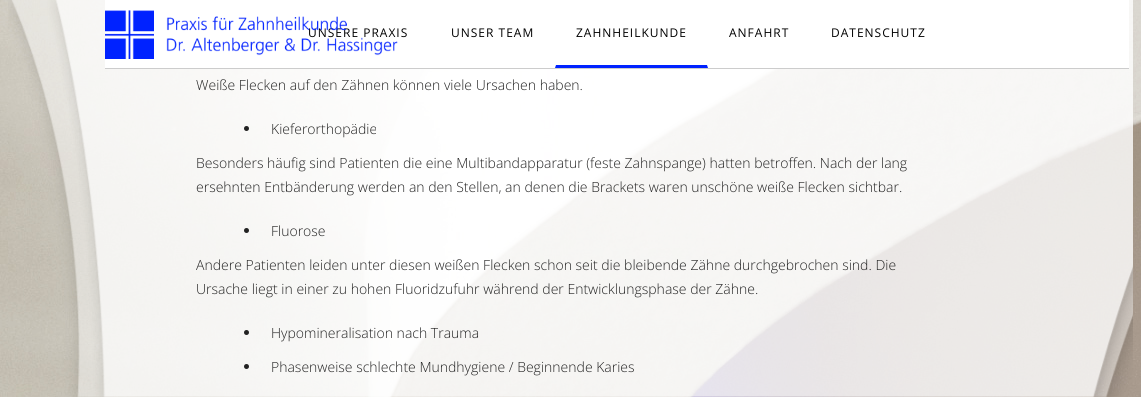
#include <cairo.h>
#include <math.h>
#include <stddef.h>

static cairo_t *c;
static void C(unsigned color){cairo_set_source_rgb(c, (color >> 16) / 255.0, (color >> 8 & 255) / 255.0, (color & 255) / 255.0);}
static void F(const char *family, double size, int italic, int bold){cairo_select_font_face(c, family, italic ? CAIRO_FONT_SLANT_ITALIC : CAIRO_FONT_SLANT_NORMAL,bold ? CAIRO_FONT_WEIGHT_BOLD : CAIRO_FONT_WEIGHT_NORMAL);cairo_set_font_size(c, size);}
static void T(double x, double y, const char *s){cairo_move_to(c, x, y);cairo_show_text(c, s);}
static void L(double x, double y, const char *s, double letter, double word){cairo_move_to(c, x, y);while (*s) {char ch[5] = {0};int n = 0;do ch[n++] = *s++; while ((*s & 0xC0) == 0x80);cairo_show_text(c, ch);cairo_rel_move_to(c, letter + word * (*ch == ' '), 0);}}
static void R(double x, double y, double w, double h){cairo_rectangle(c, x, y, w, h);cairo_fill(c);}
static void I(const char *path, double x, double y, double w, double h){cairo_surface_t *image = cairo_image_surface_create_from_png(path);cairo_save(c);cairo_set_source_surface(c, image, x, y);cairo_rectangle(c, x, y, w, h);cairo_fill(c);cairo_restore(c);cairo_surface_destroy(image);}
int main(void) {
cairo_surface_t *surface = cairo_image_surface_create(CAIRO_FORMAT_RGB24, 1141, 397);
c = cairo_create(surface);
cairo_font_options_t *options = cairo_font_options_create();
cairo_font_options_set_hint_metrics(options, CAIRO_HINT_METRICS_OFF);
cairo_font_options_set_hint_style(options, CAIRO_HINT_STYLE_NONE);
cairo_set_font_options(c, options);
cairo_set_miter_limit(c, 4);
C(0xffffff);
cairo_paint(c);
I("1.png",0,0,1141,397);
I("2.png",8,0,1125,397);
C(0xffffff);
R(105,0,1024,68);
F("Open Sans",12,0,0);
C(0x000000);
L(308,37,"UNSERE PRAXIS",1,0);
I("3.png",105,10,293,49);
C(0xcccccc);
R(105,68,1024,1);
C(0x000000);
L(451,37,"UNSER TEAM",1,0);
C(0x0022ff);
cairo_new_path(c);
cairo_move_to(c,708,68);
cairo_line_to(c,555,68);
cairo_line_to(c,556,65);
cairo_line_to(c,707,65);
cairo_close_path(c);
cairo_fill(c);
C(0x000000);
L(576,37,"ZAHNHEILKUNDE",1,0);
L(729,37,"ANFAHRT",1,0);
L(831,37,"DATENSCHUTZ",1,0);
F("Open Sans Light",14,0,0);
C(0x222222);
T(196,90,"Weiße Flecken auf den Zähnen können viele Ursachen haben.");
cairo_new_path(c);
cairo_arc(c,246.5,128.5,2.5,0,2 * M_PI);
cairo_fill(c);
T(271,134,"Kieferorthopädie");
T(196,168,"Besonders häufig sind Patienten die eine Multibandapparatur (feste Zahnspange) hatten betroffen. Nach der lang");
T(196,192,"ersehnten Entbänderung werden an den Stellen, an denen die Brackets waren unschöne weiße Flecken sichtbar.");
cairo_new_path(c);
cairo_arc(c,246.5,230.5,2.5,0,2 * M_PI);
cairo_fill(c);
T(271,236,"Fluorose");
T(196,270,"Andere Patienten leiden unter diesen weißen Flecken schon seit die bleibende Zähne durchgebrochen sind. Die");
T(196,294,"Ursache liegt in einer zu hohen Fluoridzufuhr während der Entwicklungsphase der Zähne.");
cairo_new_path(c);
cairo_arc(c,246.5,332.5,2.5,0,2 * M_PI);
cairo_fill(c);
T(271,338,"Hypomineralisation nach Trauma");
cairo_new_path(c);
cairo_arc(c,246.5,366.5,2.5,0,2 * M_PI);
cairo_fill(c);
T(271,372,"Phasenweise schlechte Mundhygiene / Beginnende Karies");
cairo_surface_write_to_png(surface, "o.png");
cairo_font_options_destroy(options);
cairo_destroy(c);
cairo_surface_destroy(surface);
return 0;
}
